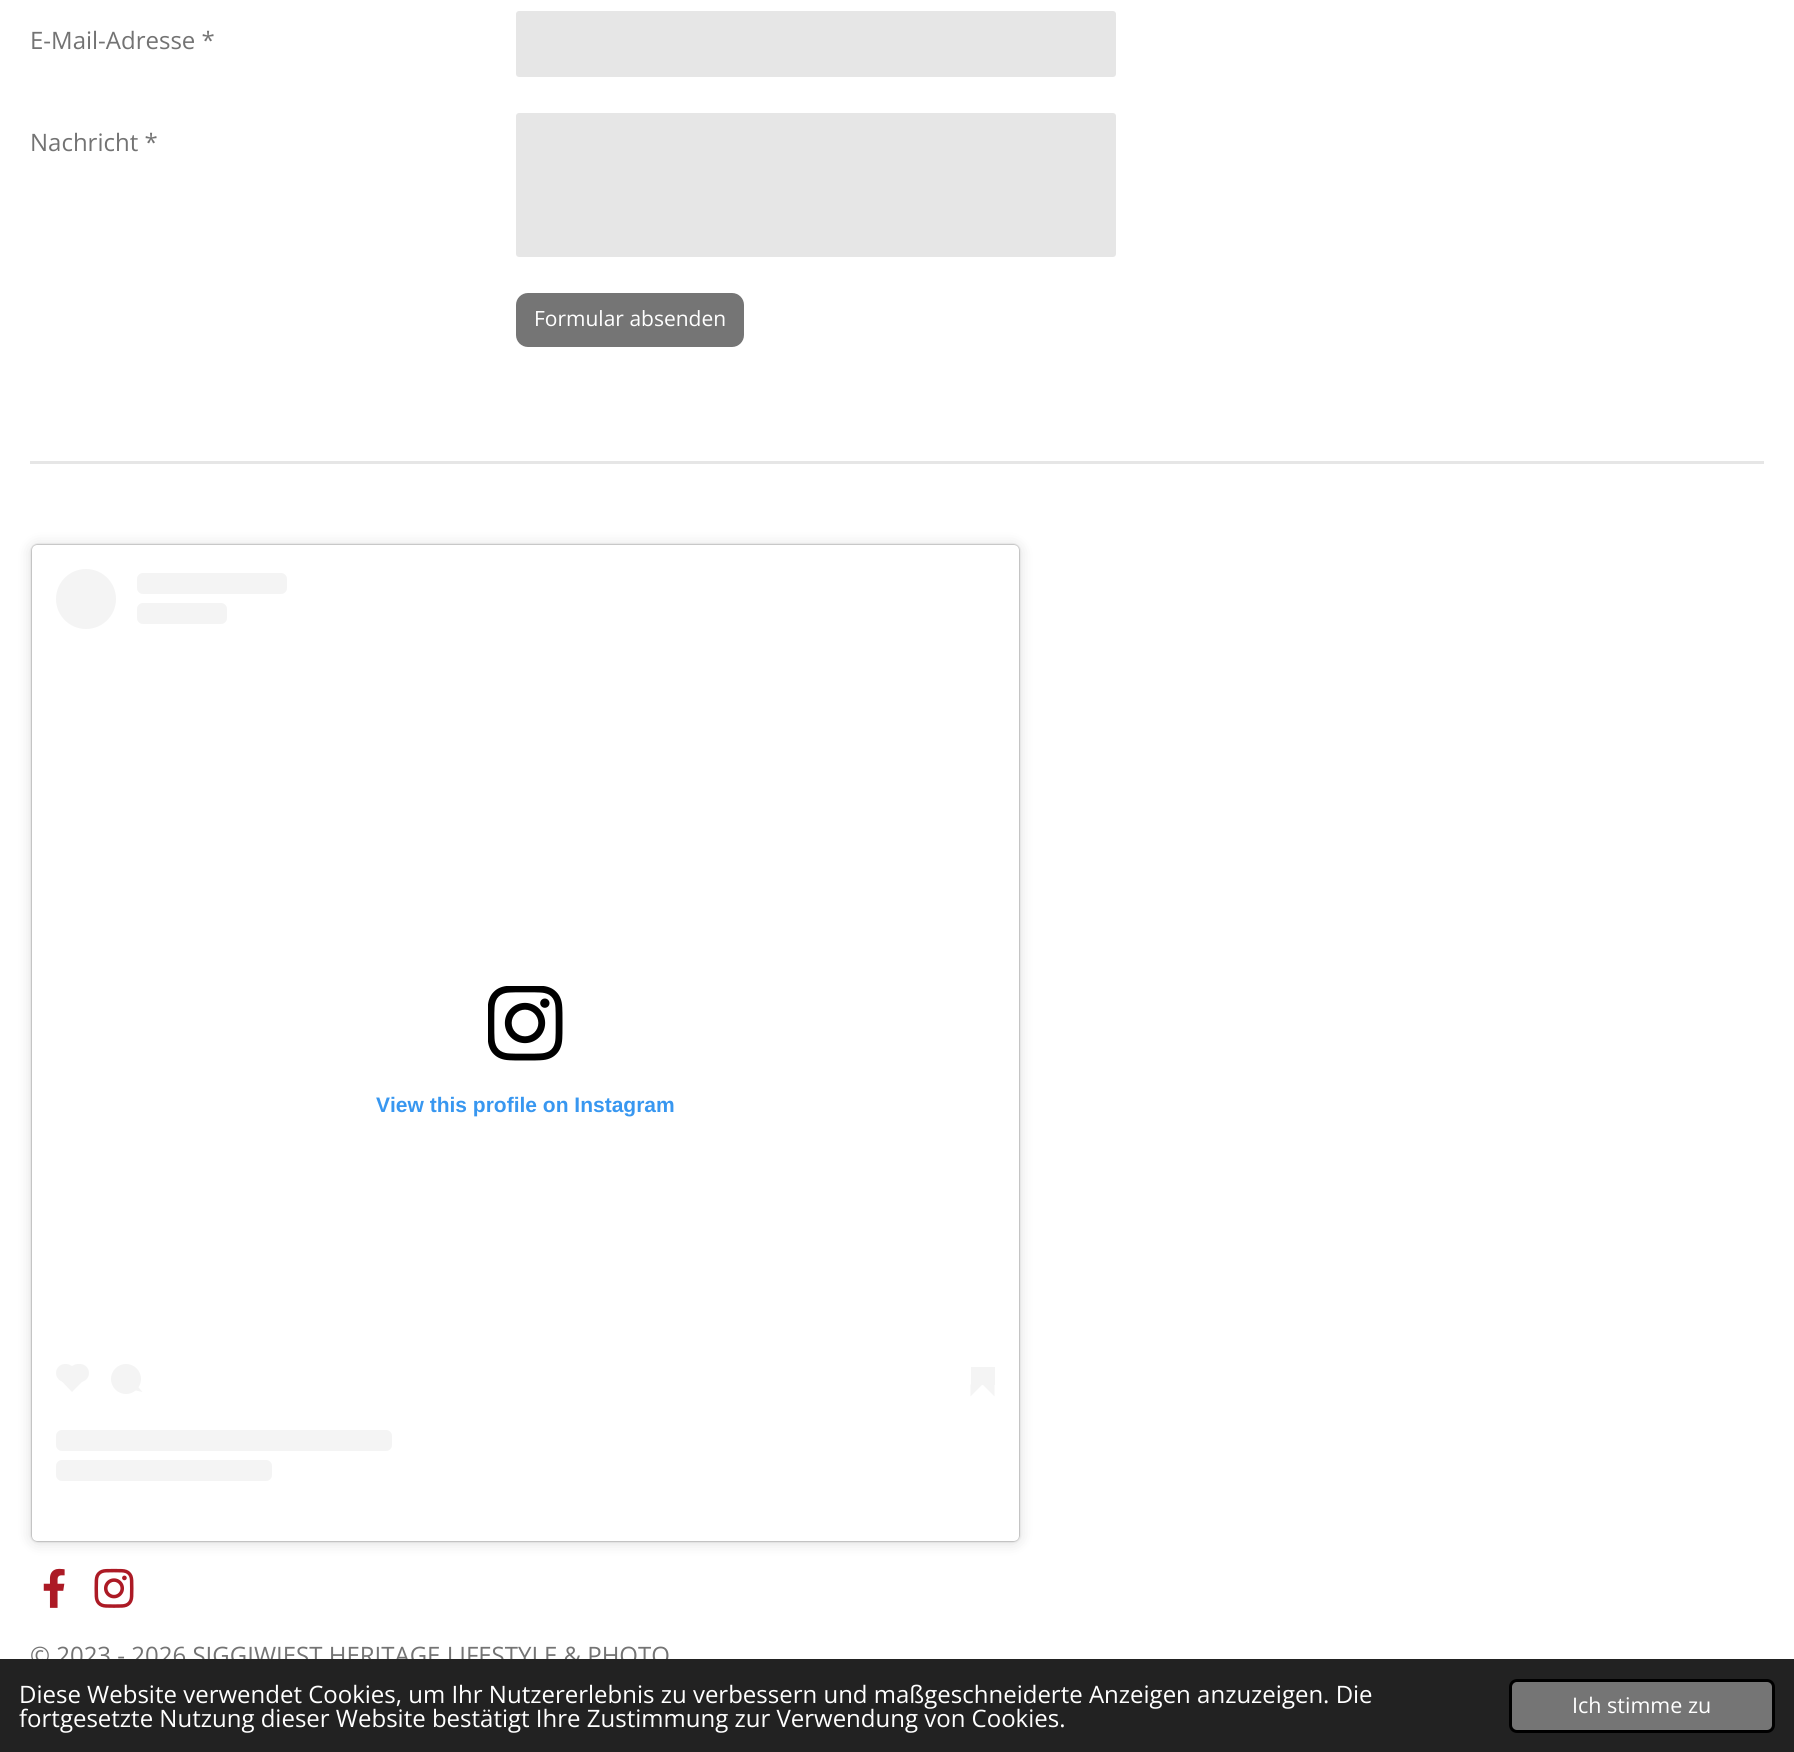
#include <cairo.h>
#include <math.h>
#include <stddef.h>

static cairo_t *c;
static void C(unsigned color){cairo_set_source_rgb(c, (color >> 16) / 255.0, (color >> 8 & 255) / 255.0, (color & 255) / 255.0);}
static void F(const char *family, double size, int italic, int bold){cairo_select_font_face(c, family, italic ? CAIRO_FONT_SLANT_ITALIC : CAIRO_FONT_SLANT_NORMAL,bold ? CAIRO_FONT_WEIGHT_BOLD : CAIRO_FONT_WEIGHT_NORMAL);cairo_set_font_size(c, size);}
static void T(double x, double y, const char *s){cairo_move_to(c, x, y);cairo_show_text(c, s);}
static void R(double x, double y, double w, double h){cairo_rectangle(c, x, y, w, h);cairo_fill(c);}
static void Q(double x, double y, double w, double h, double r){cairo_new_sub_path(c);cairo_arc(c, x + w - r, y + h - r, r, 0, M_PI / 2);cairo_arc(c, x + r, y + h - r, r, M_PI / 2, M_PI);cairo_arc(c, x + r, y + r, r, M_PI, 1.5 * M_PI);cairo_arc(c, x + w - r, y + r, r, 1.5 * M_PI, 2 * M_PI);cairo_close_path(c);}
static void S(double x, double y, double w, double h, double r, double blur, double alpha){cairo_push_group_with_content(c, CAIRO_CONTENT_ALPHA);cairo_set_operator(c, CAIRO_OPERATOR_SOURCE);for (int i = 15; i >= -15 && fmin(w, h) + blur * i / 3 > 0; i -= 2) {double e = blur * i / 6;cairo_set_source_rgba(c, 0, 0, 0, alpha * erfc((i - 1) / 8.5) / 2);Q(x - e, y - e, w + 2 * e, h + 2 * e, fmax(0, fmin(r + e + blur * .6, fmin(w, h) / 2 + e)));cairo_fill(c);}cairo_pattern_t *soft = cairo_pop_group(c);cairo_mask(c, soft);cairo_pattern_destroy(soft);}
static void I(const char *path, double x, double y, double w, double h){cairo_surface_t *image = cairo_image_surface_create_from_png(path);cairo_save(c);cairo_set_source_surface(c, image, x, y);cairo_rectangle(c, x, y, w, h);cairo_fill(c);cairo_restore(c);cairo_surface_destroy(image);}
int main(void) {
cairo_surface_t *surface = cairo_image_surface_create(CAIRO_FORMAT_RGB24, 1794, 1752);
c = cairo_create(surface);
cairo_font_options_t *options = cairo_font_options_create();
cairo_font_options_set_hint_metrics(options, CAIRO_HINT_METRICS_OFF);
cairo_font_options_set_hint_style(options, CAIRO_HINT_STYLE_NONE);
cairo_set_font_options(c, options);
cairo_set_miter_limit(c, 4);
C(0xffffff);
cairo_paint(c);
F("Open Sans",24,0,0);
C(0x737373);
T(30,49,"E-Mail-Adresse *");
C(0xe6e6e6);
Q(516,11,600,66,3);
cairo_fill(c);
C(0x737373);
T(30,151,"Nachricht *");
C(0xe6e6e6);
Q(516,113,600,144,3);
cairo_fill(c);
C(0x757575);
Q(516,293,228,54,12);
cairo_fill(c);
F("Open Sans",21,0,0);
C(0xffffff);
T(534,326,"Formular absenden");
C(0xe6e6e6);
R(30,461,1734,3);
C(0x000000);
S(32,546,987,996,5,7.5,.15);
S(32,545,987,996,5,1,.5);
C(0xffffff);
Q(32,545,987,996,5);
cairo_fill(c);
C(0xf4f4f4);
cairo_arc(c,86,599,30,0,2 * M_PI);
cairo_fill(c);
Q(137,573,150,21,6);
cairo_fill(c);
Q(137,603,90,21,6);
cairo_fill(c);
I("1.png",488,986,75,75);
F("Liberation Sans",21,0,1);
C(0x3897f0);
T(376,1112,"View this profile on Instagram");
C(0xf4f4f4);
Q(56,1364,19,18,9);
cairo_fill(c);
cairo_new_path(c);
cairo_move_to(c,59,1378.5);
cairo_line_to(c,72,1365.5);
cairo_line_to(c,85.5,1378.5);
cairo_line_to(c,72,1392);
cairo_close_path(c);
cairo_fill(c);
Q(69,1364,20,18,9);
cairo_fill(c);
cairo_arc(c,126,1379,15,0,2 * M_PI);
cairo_fill(c);
cairo_new_path(c);
cairo_move_to(c,133.5,1390);
cairo_line_to(c,136.5,1385);
cairo_line_to(c,142.5,1392);
cairo_close_path(c);
cairo_fill(c);
cairo_new_path(c);
cairo_move_to(c,970.5,1384.5);
cairo_line_to(c,982.5,1384.5);
cairo_line_to(c,970.5,1396.5);
cairo_close_path(c);
cairo_fill(c);
R(971,1367,24,18);
cairo_new_path(c);
cairo_move_to(c,982.5,1384.5);
cairo_line_to(c,994.5,1384.5);
cairo_line_to(c,994.5,1396.5);
cairo_close_path(c);
cairo_fill(c);
Q(56,1430,336,21,6);
cairo_fill(c);
Q(56,1460,216,21,6);
cairo_fill(c);
I("2.png",43,1568,22,40);
I("3.png",94,1568,40,40);
F("Open Sans",24,0,0);
C(0x737373);
T(30,1664,"© 2023 - 2026 SIGGIWIEST HERITAGE LIFESTYLE & PHOTO");
C(0x222222);
R(0,1659,1794,93);
C(0xffffff);
T(19,1703,"Diese Website verwendet Cookies, um Ihr Nutzererlebnis zu verbessern und maßgeschneiderte Anzeigen anzuzeigen. Die");
T(19,1727,"fortgesetzte Nutzung dieser Website bestätigt Ihre Zustimmung zur Verwendung von Cookies.");
C(0x757575);
Q(1510.5,1680.5,263,51,6.5);
cairo_fill_preserve(c);
C(0x000000);
cairo_set_line_width(c,3);
cairo_stroke(c);
F("Open Sans",21.5,0,0);
C(0xffffff);
T(1572,1713,"Ich stimme zu");
cairo_surface_write_to_png(surface, "o.png");
cairo_font_options_destroy(options);
cairo_destroy(c);
cairo_surface_destroy(surface);
return 0;
}
